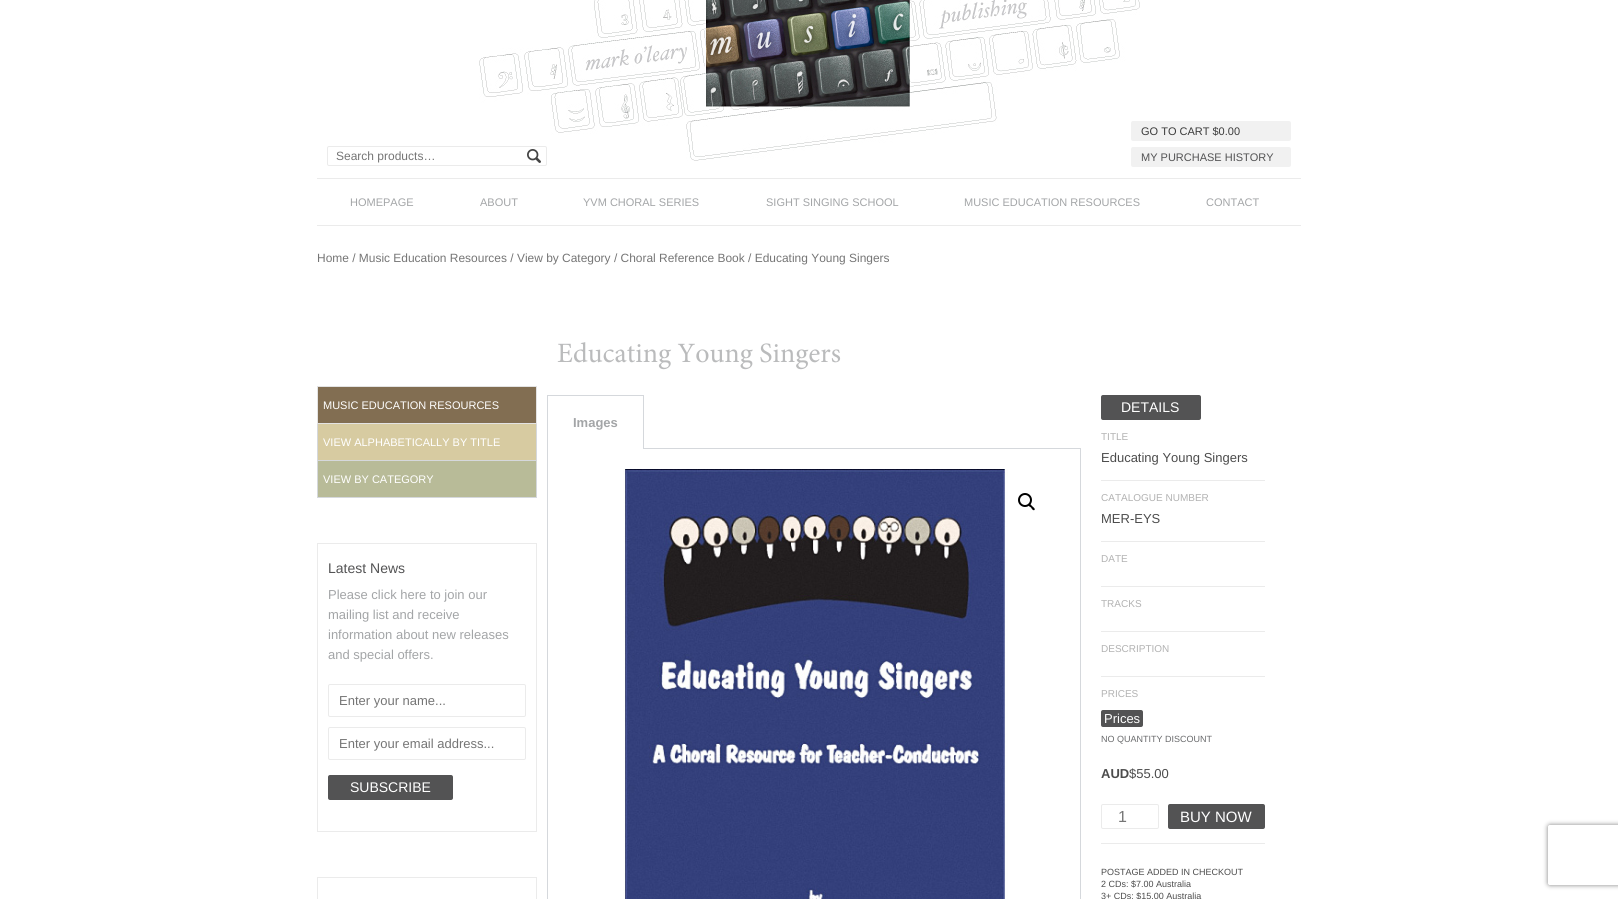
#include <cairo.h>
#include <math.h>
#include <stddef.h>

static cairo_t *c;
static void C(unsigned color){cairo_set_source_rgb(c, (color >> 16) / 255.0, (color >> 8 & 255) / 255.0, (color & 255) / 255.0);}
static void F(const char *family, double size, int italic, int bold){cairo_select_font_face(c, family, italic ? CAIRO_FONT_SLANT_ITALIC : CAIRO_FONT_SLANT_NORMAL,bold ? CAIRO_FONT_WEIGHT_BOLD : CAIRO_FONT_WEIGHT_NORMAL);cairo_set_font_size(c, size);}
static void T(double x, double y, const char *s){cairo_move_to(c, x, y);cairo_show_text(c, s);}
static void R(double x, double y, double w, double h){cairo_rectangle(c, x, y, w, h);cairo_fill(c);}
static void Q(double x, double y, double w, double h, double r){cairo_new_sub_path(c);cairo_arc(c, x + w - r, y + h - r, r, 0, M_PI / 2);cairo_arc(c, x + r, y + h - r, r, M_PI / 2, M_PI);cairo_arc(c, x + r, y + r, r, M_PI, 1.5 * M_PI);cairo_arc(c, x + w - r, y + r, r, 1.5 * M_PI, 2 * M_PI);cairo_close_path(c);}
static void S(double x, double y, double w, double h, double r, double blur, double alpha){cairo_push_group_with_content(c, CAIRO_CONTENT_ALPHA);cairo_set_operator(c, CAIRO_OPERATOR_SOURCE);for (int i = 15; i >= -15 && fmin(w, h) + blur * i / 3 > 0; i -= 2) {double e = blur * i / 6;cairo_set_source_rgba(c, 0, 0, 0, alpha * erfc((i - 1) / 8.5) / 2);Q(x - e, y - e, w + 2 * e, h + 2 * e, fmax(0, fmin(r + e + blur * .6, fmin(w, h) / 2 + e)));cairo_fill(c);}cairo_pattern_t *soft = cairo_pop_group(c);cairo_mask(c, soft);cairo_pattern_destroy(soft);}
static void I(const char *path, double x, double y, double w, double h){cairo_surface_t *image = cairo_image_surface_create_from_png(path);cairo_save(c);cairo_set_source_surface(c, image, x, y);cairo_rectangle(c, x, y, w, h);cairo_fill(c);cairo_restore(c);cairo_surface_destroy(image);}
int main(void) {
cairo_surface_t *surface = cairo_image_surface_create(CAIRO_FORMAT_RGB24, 1618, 899);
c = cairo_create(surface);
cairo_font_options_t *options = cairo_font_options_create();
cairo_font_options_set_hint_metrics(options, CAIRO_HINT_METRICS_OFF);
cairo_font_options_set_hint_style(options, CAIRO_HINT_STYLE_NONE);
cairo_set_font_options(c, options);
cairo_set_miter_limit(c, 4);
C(0xffffff);
cairo_paint(c);
I("1.png",479,0,661,161);
I("2.png",527,149,14,14);
Q(327.5,146.5,219,19,1.5);
C(0xebebeb);
cairo_set_line_width(c,1);
cairo_stroke(c);
F("Liberation Sans",12,0,0);
C(0x757575);
T(336,160,"Search products…");
C(0xf1f1f1);
Q(1131,121,160,20,2);
cairo_fill(c);
F("Liberation Sans",11,0,0);
C(0x3b3b3b);
T(1141,135,"GO TO CART $0.00");
C(0xf1f1f1);
Q(1131,147,160,20,2);
cairo_fill(c);
C(0x535354);
T(1141,161,"MY PURCHASE HISTORY");
C(0xebebeb);
R(317,178,984,1);
R(317,225,984,1);
C(0xa3a5a7);
T(350,206,"HOMEPAGE");
T(480,206,"ABOUT");
T(583,206,"YVM CHORAL SERIES");
T(766,206,"SIGHT SINGING SCHOOL");
T(964,206,"MUSIC EDUCATION RESOURCES");
T(1206,206,"CONTACT");
F("Liberation Sans",11.95,0,0);
C(0x757575);
T(317,262,"Home / Music Education Resources / View by Category / Choral Reference Book / Educating Young Singers");
C(0x826e52);
cairo_rectangle(c,317.5,386.5,219,37);
cairo_fill_preserve(c);
C(0xe3e3e3);
cairo_stroke(c);
F("Liberation Sans",11,0,0);
C(0xffffff);
T(323,409,"MUSIC EDUCATION RESOURCES");
C(0xd5d8dc);
R(536,424,1,74);
R(317,460,220,1);
R(317,424,1,37);
C(0xd7cba1);
R(318,424,218,36);
C(0xffffff);
T(323,446,"VIEW ALPHABETICALLY BY TITLE");
C(0xd5d8dc);
R(317,497,220,1);
R(317,461,1,37);
C(0xb8bb98);
R(318,461,218,36);
C(0xffffff);
T(323,483,"VIEW BY CATEGORY");
cairo_rectangle(c,317.5,543.5,219,288);
C(0xebebeb);
cairo_stroke(c);
F("Liberation Sans",14,0,0);
C(0x535354);
T(328,573,"Latest News");
F("Liberation Sans",13,0,0);
C(0xa3a5a7);
T(328,599,"Please click here to join our");
T(328,619,"mailing list and receive");
T(328,639,"information about new releases");
T(328,659,"and special offers.");
Q(328.5,684.5,197,32,1.5);
C(0xebebeb);
cairo_stroke(c);
C(0x757575);
T(339,705,"Enter your name...");
Q(328.5,727.5,197,32,1.5);
C(0xebebeb);
cairo_stroke(c);
C(0x757575);
T(339,748,"Enter your email address...");
C(0x535354);
Q(328,775,125,25,2);
cairo_fill(c);
F("Liberation Sans",14,0,0);
C(0xffffff);
T(350,792,"SUBSCRIBE");
cairo_rectangle(c,317.5,877.5,219,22);
C(0xebebeb);
cairo_stroke(c);
I("3.png",557,342,284,28);
C(0xd5d8dc);
R(547,395,97,1);
R(643,395,1,54);
R(547,395,1,54);
F("Liberation Sans",13,0,1);
C(0xa3a5a7);
T(573,427,"Images");
C(0xd5d8dc);
R(643,448,438,1);
R(1080,449,1,450);
R(547,449,1,450);
I("4.png",623,469,385,430);
cairo_arc(c,1025,500,6,0,2 * M_PI);
C(0x000000);
cairo_set_line_width(c,2);
cairo_stroke(c);
cairo_new_path(c);
cairo_move_to(c,1028.5,504);
cairo_curve_to(c,1030,503,1031.5,505.5,1032,506);
cairo_curve_to(c,1033,507,1035.5,508.5,1034.5,510);
cairo_curve_to(c,1033,511,1031.5,508.5,1031,507.5);
cairo_curve_to(c,1030,507,1027.5,505.5,1028.5,504);
cairo_close_path(c);
cairo_fill(c);
C(0x535354);
Q(1101,395,100,25,2);
cairo_fill(c);
F("Liberation Sans",14,0,0);
C(0xffffff);
T(1121,412,"DETAILS");
F("Liberation Sans",10,0,0);
C(0xb2b2b2);
T(1101,440,"TITLE");
C(0xebebeb);
R(1101,480,164,1);
F("Liberation Sans",13,0,0);
C(0x4c4c4c);
T(1101,462,"Educating Young Singers");
F("Liberation Sans",10,0,0);
C(0xb2b2b2);
T(1101,501,"CATALOGUE NUMBER");
C(0xebebeb);
R(1101,541,164,1);
F("Liberation Sans",13,0,0);
C(0x4c4c4c);
T(1101,523,"MER-EYS");
F("Liberation Sans",10,0,0);
C(0xb2b2b2);
T(1101,562,"DATE");
C(0xebebeb);
R(1101,586,164,1);
C(0xb2b2b2);
T(1101,607,"TRACKS");
C(0xebebeb);
R(1101,631,164,1);
C(0xb2b2b2);
T(1101,652,"DESCRIPTION");
C(0xebebeb);
R(1101,676,164,1);
C(0xb2b2b2);
T(1101,697,"PRICES");
C(0x535354);
Q(1101,710,42,17,2);
cairo_fill(c);
F("Liberation Sans",13,0,0);
C(0xffffff);
T(1104,723,"Prices");
F("Liberation Sans",9,0,0);
C(0x696a6c);
T(1101,742,"NO QUANTITY DISCOUNT");
F("Liberation Sans",13,0,1);
C(0x4c4c4c);
T(1101,778,"AUD");
F("Liberation Sans",13,0,0);
T(1129,778,"$55.00");
C(0xebebeb);
R(1101,843,164,1);
Q(1101.5,804.5,57,24,1.5);
cairo_set_line_width(c,1);
cairo_stroke(c);
F("Liberation Sans",16,0,0);
C(0x757575);
T(1118,822,"1");
C(0x535354);
Q(1168,804,97,25,2);
cairo_fill(c);
F("Liberation Sans",15,0,0);
C(0xffffff);
T(1180,822,"BUY NOW");
F("Liberation Sans",9,0,0);
C(0x4c4c4c);
T(1101,875,"POSTAGE ADDED IN CHECKOUT");
T(1101,887,"2 CDs: $7.00 Australia");
T(1101,899,"3+ CDs: $15.00 Australia");
cairo_save(c);
cairo_set_fill_rule(c,CAIRO_FILL_RULE_EVEN_ODD);
cairo_new_path(c);
cairo_move_to(c,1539,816);
cairo_line_to(c,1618,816);
cairo_line_to(c,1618,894);
cairo_line_to(c,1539,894);
cairo_close_path(c);
cairo_move_to(c,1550,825);
cairo_line_to(c,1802,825);
cairo_curve_to(c,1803,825,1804,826,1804,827);
cairo_line_to(c,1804,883);
cairo_curve_to(c,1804,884,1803,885,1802,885);
cairo_line_to(c,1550,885);
cairo_curve_to(c,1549,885,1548,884,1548,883);
cairo_line_to(c,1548,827);
cairo_curve_to(c,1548,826,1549,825,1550,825);
cairo_close_path(c);
cairo_clip(c);
C(0x808080);
S(1548,825,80,60,2,2.5,1);
cairo_restore(c);
cairo_surface_write_to_png(surface, "o.png");
cairo_font_options_destroy(options);
cairo_destroy(c);
cairo_surface_destroy(surface);
return 0;
}
